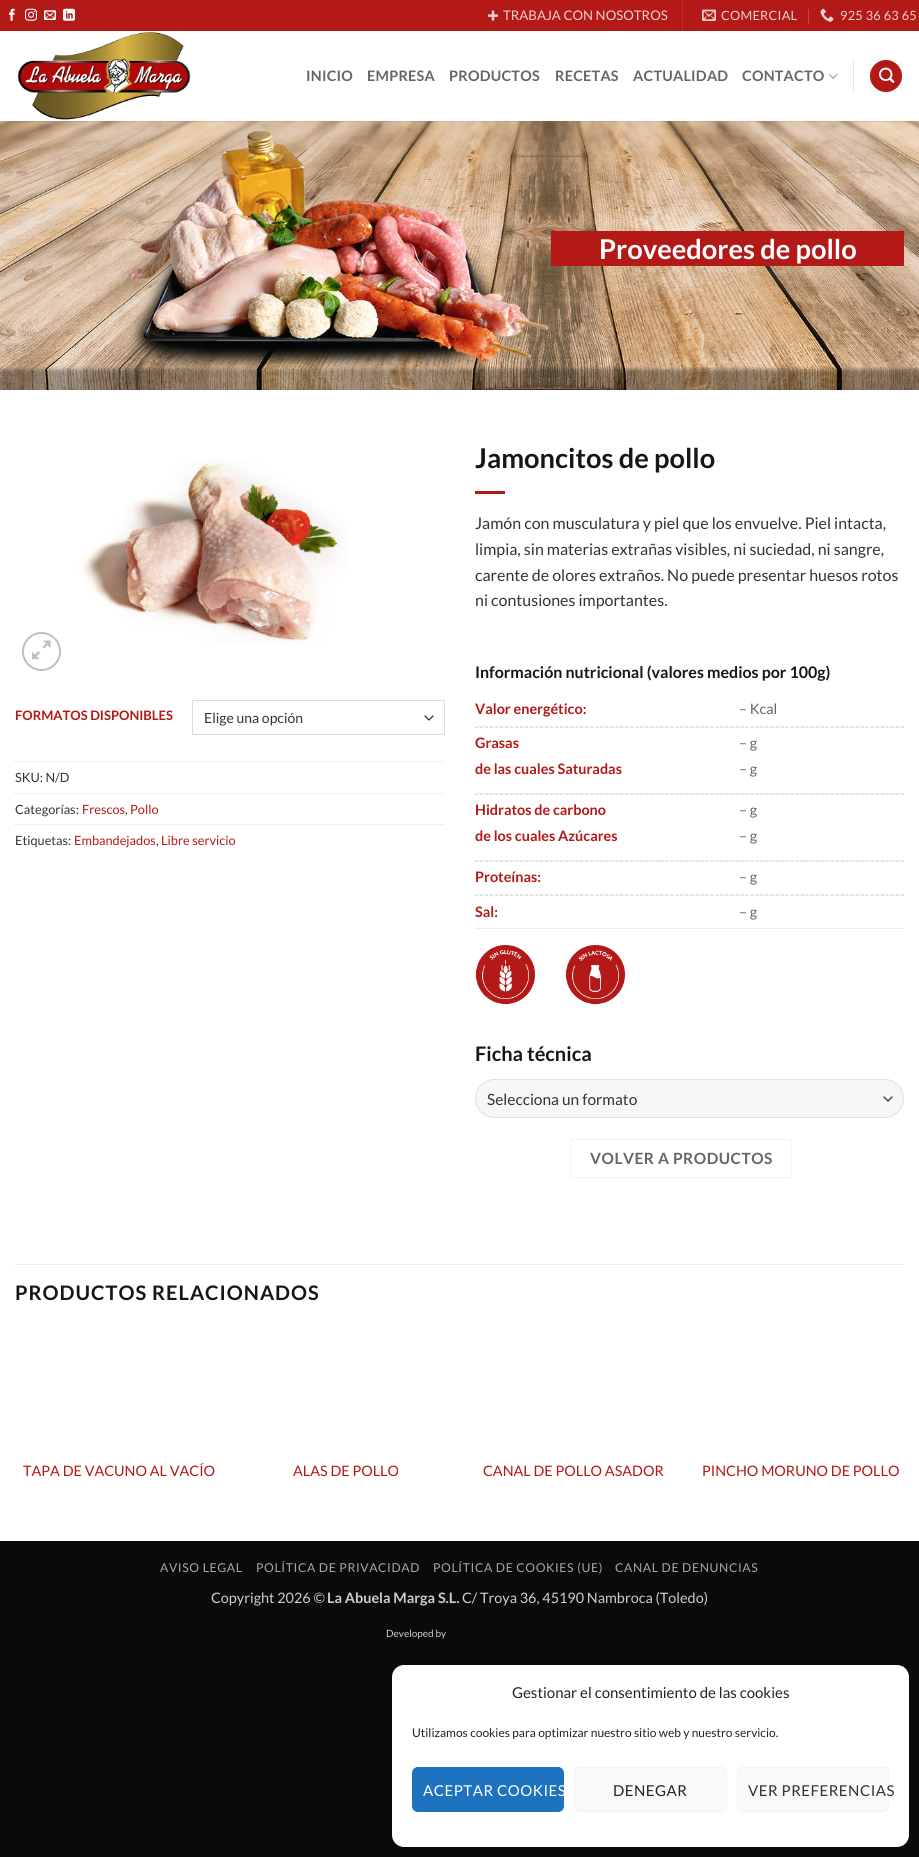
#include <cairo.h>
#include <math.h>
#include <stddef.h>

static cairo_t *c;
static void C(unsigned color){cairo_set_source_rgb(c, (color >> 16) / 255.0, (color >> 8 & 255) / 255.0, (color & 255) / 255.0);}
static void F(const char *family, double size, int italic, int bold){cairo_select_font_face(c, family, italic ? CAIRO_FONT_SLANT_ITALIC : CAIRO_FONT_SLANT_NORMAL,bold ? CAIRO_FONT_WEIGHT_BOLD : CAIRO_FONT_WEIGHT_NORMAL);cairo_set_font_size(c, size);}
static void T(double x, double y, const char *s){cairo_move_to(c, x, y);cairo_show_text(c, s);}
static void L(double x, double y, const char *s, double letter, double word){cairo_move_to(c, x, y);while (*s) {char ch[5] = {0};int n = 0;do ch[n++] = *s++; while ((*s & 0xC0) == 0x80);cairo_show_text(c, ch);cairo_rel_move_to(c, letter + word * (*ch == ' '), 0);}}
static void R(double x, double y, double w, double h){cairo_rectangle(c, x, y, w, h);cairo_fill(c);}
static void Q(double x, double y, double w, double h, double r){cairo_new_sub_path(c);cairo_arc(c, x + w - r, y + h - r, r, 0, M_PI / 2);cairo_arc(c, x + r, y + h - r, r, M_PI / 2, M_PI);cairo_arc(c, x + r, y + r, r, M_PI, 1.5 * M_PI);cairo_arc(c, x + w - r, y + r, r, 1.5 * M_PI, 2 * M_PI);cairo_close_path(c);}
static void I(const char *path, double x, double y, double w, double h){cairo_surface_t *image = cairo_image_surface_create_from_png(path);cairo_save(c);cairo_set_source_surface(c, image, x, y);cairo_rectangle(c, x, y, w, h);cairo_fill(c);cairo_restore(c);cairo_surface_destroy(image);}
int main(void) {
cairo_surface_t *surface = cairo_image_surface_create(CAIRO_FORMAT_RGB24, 919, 1857);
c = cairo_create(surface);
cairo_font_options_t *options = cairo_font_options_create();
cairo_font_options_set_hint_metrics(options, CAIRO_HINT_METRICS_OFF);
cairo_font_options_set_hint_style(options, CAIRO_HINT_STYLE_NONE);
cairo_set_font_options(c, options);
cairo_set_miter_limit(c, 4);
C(0x0a0a0a);
cairo_paint(c);
C(0xffffff);
R(0,31,919,1510);
C(0xb21917);
R(0,0,919,31);
I("1.png",9,8,6,13);
I("2.png",25,8,12,13);
I("3.png",44,10,12,10);
I("4.png",63,8,12,13);
I("5.png",488,10,10,11);
F("Lato",13.25,0,0);
C(0xf0d1d1);
T(503,20,"TRABAJA CON NOSOTROS");
C(0xba302e);
R(682,1,1,30);
I("6.png",702,9,14,12);
F("Lato",12.75,0,0);
C(0xf0d1d1);
L(721,20,"COMERCIAL",.25,0);
C(0xc14745);
R(808,9,1,15);
I("7.png",820,8,14,14);
C(0xf0d1d1);
L(840,20,"925 36 63 65",.25,0);
I("8.png",17,32,174,88);
F("Lato",14.4,0,1);
C(0x666666);
L(306,81,"INICIO",.25,0);
L(367,81,"EMPRESA",.25,0);
L(449,81,"PRODUCTOS",.25,0);
L(555,81,"RECETAS",.25,0);
L(633,81,"ACTUALIDAD",.25,0);
L(742,81,"CONTACTO",.25,0);
I("9.png",828,73,10,6);
C(0xe6e6e6);
R(853,61,1,30);
C(0xb21917);
cairo_arc(c,886,76,16,0,2 * M_PI);
cairo_fill(c);
cairo_rectangle(c,870.5,60.5,31,31);
cairo_set_source_rgba(c,0,0,0,0.05);
cairo_set_line_width(c,1);
cairo_stroke(c);
I("10.png",879,67,16,16);
I("11.png",0,121,919,269);
cairo_set_source_rgba(c,0.2,0.2,0.2,0.1);
R(15,121,889,1);
C(0xb21917);
R(551,231,353,35);
F("Lato",27.25,0,1);
C(0xffffff);
T(599,259,"Proveedores de pollo");
I("12.png",78,459,270,184);
cairo_arc(c,41.5,651.5,18.5,0,2 * M_PI);
C(0xc0c0c0);
cairo_set_line_width(c,2);
cairo_stroke(c);
I("13.png",32,640,19,20);
F("Lato",13,0,1);
C(0xb21917);
T(15,720,"FORMATOS DISPONIBLES");
cairo_new_path(c);
cairo_move_to(c,425,716);
cairo_line_to(c,429,720);
cairo_line_to(c,433,716);
C(0x333333);
cairo_set_line_width(c,1.3);
cairo_set_line_cap(c,CAIRO_LINE_CAP_ROUND);
cairo_set_line_join(c,CAIRO_LINE_JOIN_ROUND);
cairo_stroke(c);
cairo_rectangle(c,192.5,700.5,252,34);
C(0xdddddd);
cairo_set_line_width(c,1);
cairo_set_line_cap(c,CAIRO_LINE_CAP_BUTT);
cairo_set_line_join(c,CAIRO_LINE_JOIN_MITER);
cairo_stroke(c);
F("Lato",14,0,0);
C(0x333333);
T(204,723,"Elige una opción");
cairo_new_path(c);
cairo_move_to(c,15,761.5);
cairo_line_to(c,445,761.5);
C(0xdddddd);
cairo_set_dash(c,(double[]){1,1},2,0);
cairo_stroke(c);
F("Lato",12.75,0,0);
C(0x333333);
T(15,782,"SKU: N/D");
cairo_new_path(c);
cairo_move_to(c,15,793.5);
cairo_line_to(c,445,793.5);
C(0xdddddd);
cairo_stroke(c);
C(0x333333);
T(15,814,"Categorías:");
C(0xb21917);
T(82,814,"Frescos");
C(0x333333);
T(125,814,",");
C(0xb21917);
T(130,814,"Pollo");
cairo_new_path(c);
cairo_move_to(c,15,824.5);
cairo_line_to(c,445,824.5);
C(0xdddddd);
cairo_stroke(c);
C(0x333333);
T(15,845,"Etiquetas:");
C(0xb21917);
T(74,845,"Embandejados");
C(0x333333);
T(156,845,",");
C(0xb21917);
T(161,845,"Libre servicio");
F("Lato",27.25,0,1);
C(0x161616);
T(475,468,"Jamoncitos de pollo");
C(0xb21917);
R(475,491,30,3);
F("Lato",16,0,0);
C(0x333333);
T(475,529,"Jamón con musculatura y piel que los envuelve. Piel intacta,");
T(475,555,"limpia, sin materias extrañas visibles, ni suciedad, ni sangre,");
T(475,581,"carente de olores extraños. No puede presentar huesos rotos");
T(475,606,"ni contusiones importantes.");
F("Lato",16,0,1);
C(0x161616);
T(475,678,"Información nutricional (valores medios por 100g)");
C(0xececec);
R(475,726,429,1);
F("Lato",14.4,0,1);
C(0xb21917);
T(475,714,"Valor energético:");
F("Lato",14.4,0,0);
C(0x666666);
T(739,714,"– Kcal");
cairo_new_path(c);
cairo_move_to(c,475,727.5);
cairo_line_to(c,904,727.5);
C(0xdddddd);
cairo_set_dash(c,(double[]){3,2.01},2,0);
cairo_stroke(c);
C(0xececec);
R(475,793,429,1);
F("Lato",14.4,0,1);
C(0xb21917);
T(475,748,"Grasas");
T(475,774,"de las cuales Saturadas");
F("Lato",14.4,0,0);
C(0x666666);
T(739,748,"– g");
T(739,774,"– g");
cairo_new_path(c);
cairo_move_to(c,475,794.5);
cairo_line_to(c,904,794.5);
C(0xdddddd);
cairo_stroke(c);
C(0xececec);
R(475,860,429,1);
F("Lato",14.4,0,1);
C(0xb21917);
T(475,815,"Hidratos de carbono");
T(475,841,"de los cuales Azúcares");
F("Lato",14.4,0,0);
C(0x666666);
T(739,815,"– g");
T(739,841,"– g");
cairo_new_path(c);
cairo_move_to(c,475,861.5);
cairo_line_to(c,904,861.5);
C(0xdddddd);
cairo_stroke(c);
C(0xececec);
R(475,894,429,1);
F("Lato",14.4,0,1);
C(0xb21917);
T(475,882,"Proteínas:");
F("Lato",14.4,0,0);
C(0x666666);
T(739,882,"– g");
cairo_new_path(c);
cairo_move_to(c,475,895.5);
cairo_line_to(c,904,895.5);
C(0xdddddd);
cairo_stroke(c);
C(0xececec);
R(475,928,429,1);
F("Lato",14.4,0,1);
C(0xb21917);
T(475,917,"Sal:");
F("Lato",14.4,0,0);
C(0x666666);
T(739,917,"– g");
I("14.png",475,945,60,60);
I("15.png",565,945,60,60);
F("Lato",20,0,1);
C(0x161616);
T(475,1061,"Ficha técnica");
C(0xf7f7f7);
Q(475,1079,429,39,19.5);
cairo_fill(c);
cairo_new_path(c);
cairo_move_to(c,884,1097);
cairo_line_to(c,888,1101);
cairo_line_to(c,892,1097);
C(0x333333);
cairo_set_line_width(c,1.3);
cairo_set_line_cap(c,CAIRO_LINE_CAP_ROUND);
cairo_set_line_join(c,CAIRO_LINE_JOIN_ROUND);
cairo_set_dash(c,NULL,0,0);
cairo_stroke(c);
Q(475.5,1079.5,428,38,19);
cairo_set_source_rgba(c,0,0,0,0.09);
cairo_set_line_width(c,1);
cairo_set_line_cap(c,CAIRO_LINE_CAP_BUTT);
cairo_set_line_join(c,CAIRO_LINE_JOIN_MITER);
cairo_stroke(c);
F("Lato",15.5,0,0);
C(0x333333);
T(487,1105,"Selecciona un formato");
cairo_rectangle(c,571.5,1139.5,220,38);
C(0xf2f2f2);
cairo_stroke(c);
F("Lato",15.5,0,1);
C(0x666666);
L(590,1164,"VOLVER A PRODUCTOS",.5,0);
C(0xececec);
R(15,1264,889,1);
F("Lato",20,0,1);
C(0x161616);
L(15,1300,"PRODUCTOS RELACIONADOS",1,0);
F("Lato",14.4,0,0);
C(0xb21917);
T(23,1476,"TAPA DE VACUNO AL VACÍO");
T(293,1476,"ALAS DE POLLO");
T(483,1476,"CANAL DE POLLO ASADOR");
T(702,1476,"PINCHO MORUNO DE POLLO");
F("Lato",12.25,0,0);
C(0xa7a7a7);
L(160,1572,"AVISO LEGAL",.6,0);
L(256,1572,"POLÍTICA DE PRIVACIDAD",.6,0);
L(433,1572,"POLÍTICA DE COOKIES (UE)",.6,0);
L(615,1572,"CANAL DE DENUNCIAS",.6,0);
F("Lato",14.4,0,0);
C(0xcecece);
T(211,1603,"Copyright 2026 ©");
F("Lato",14.4,0,1);
T(327,1603,"La Abuela Marga S.L.");
F("Lato",14.4,0,0);
T(462,1603,"C/ Troya 36, 45190 Nambroca (Toledo)");
F("Lato",10,0,0);
T(386,1637,"Developed by");
C(0xffffff);
Q(392,1665,517,182,12);
cairo_fill(c);
F("Lato",15,0,0);
C(0x222222);
T(512,1698,"Gestionar el consentimiento de las cookies");
F("Lato",12,0,0);
T(412,1737,"Utilizamos cookies para optimizar nuestro sitio web y nuestro servicio.");
C(0x1e73be);
Q(412.5,1767.5,151,44,5.5);
cairo_fill_preserve(c);
cairo_stroke(c);
F("Lato",15,0,0);
C(0xffffff);
L(423,1796,"ACEPTAR COOKIES",.5,0);
C(0xf9f9f9);
Q(574.5,1767.5,152,44,5.5);
cairo_fill_preserve(c);
C(0xf2f2f2);
cairo_stroke(c);
C(0x222222);
L(613,1796,"DENEGAR",.5,0);
C(0xf9f9f9);
Q(737.5,1767.5,151,44,5.5);
cairo_fill_preserve(c);
C(0xf2f2f2);
cairo_stroke(c);
C(0x333333);
L(748,1796,"VER PREFERENCIAS",.5,0);
cairo_surface_write_to_png(surface, "o.png");
cairo_font_options_destroy(options);
cairo_destroy(c);
cairo_surface_destroy(surface);
return 0;
}
